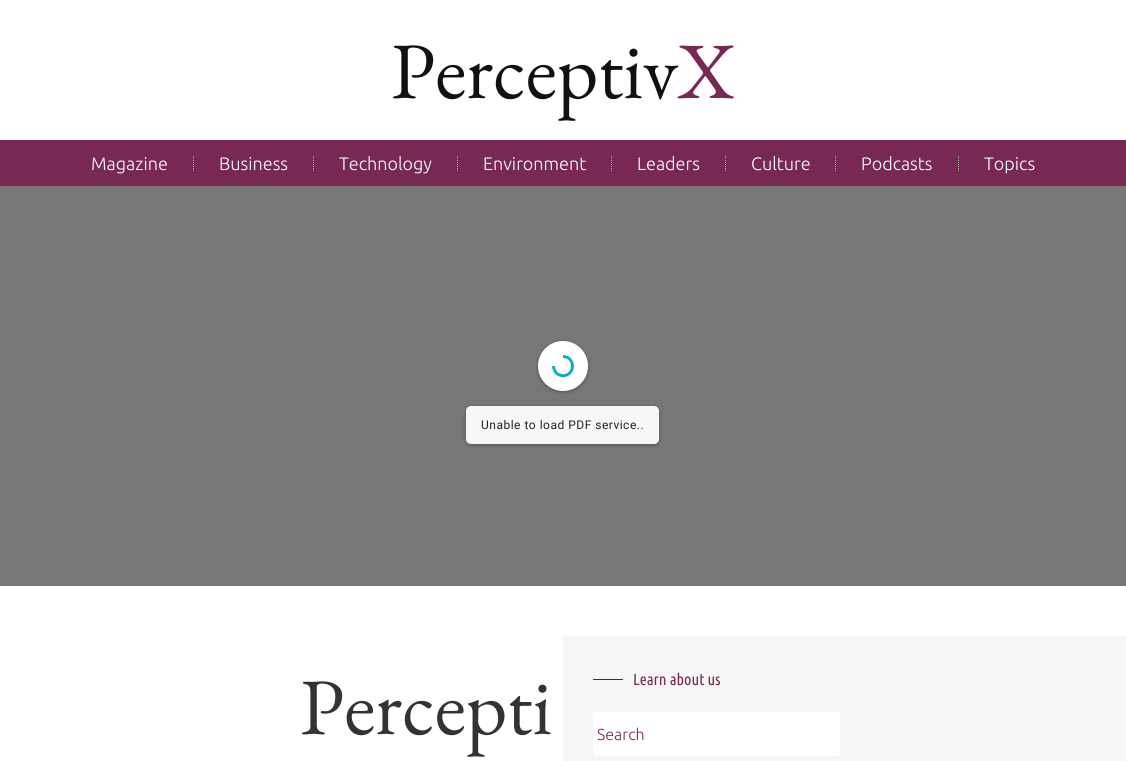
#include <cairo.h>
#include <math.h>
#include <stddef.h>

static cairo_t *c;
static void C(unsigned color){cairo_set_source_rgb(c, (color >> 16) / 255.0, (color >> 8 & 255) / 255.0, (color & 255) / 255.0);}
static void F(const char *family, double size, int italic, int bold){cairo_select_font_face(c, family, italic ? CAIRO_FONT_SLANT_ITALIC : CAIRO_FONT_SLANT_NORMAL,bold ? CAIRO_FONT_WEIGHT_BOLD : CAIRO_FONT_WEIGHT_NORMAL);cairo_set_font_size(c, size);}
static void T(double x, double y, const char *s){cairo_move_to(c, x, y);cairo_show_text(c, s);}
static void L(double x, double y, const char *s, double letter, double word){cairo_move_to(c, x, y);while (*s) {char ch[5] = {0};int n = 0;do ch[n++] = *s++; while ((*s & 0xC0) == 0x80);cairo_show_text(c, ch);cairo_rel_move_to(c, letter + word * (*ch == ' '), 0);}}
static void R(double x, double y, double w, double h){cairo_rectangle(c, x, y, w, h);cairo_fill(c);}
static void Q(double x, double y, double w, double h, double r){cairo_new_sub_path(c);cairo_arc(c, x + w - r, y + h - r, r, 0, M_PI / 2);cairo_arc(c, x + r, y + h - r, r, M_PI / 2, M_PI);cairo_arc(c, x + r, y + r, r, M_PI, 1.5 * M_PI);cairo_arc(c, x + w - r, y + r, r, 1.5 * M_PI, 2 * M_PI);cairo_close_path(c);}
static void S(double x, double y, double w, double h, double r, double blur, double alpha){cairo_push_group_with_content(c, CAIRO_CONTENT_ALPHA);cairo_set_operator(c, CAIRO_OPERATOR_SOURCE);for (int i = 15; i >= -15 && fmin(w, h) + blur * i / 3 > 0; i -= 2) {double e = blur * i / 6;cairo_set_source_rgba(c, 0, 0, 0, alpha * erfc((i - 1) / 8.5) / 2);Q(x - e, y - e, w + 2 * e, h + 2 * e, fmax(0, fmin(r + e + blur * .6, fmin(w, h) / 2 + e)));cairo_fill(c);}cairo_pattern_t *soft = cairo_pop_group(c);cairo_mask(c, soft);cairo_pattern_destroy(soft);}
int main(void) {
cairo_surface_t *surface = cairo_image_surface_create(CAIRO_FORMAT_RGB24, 1126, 761);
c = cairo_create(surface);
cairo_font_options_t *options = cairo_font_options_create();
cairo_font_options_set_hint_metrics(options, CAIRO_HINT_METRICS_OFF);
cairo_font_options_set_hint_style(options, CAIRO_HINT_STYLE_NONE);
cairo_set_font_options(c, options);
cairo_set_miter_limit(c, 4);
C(0xffffff);
cairo_paint(c);
F("EB Garamond",80,0,0);
C(0x111111);
T(391,98,"Perceptiv");
C(0x772953);
T(678,98,"X");
R(0,140,1126,46);
F("Ubuntu Light",18,0,0);
C(0xffffff);
T(91,170,"Magazine");
cairo_new_path(c);
cairo_move_to(c,193.5,156);
cairo_line_to(c,193.5,171);
C(0xaea79f);
cairo_set_line_width(c,1);
cairo_set_dash(c,(double[]){1,1},2,0);
cairo_stroke(c);
C(0xffffff);
T(219,170,"Business");
cairo_new_path(c);
cairo_move_to(c,313.5,156);
cairo_line_to(c,313.5,171);
C(0xaea79f);
cairo_stroke(c);
C(0xffffff);
T(339,170,"Technology");
cairo_new_path(c);
cairo_move_to(c,457.5,156);
cairo_line_to(c,457.5,171);
C(0xaea79f);
cairo_stroke(c);
C(0xffffff);
T(483,170,"Environment");
cairo_new_path(c);
cairo_move_to(c,611.5,156);
cairo_line_to(c,611.5,171);
C(0xaea79f);
cairo_stroke(c);
C(0xffffff);
T(637,170,"Leaders");
cairo_new_path(c);
cairo_move_to(c,725.5,156);
cairo_line_to(c,725.5,171);
C(0xaea79f);
cairo_stroke(c);
C(0xffffff);
T(751,170,"Culture");
cairo_new_path(c);
cairo_move_to(c,835.5,156);
cairo_line_to(c,835.5,171);
C(0xaea79f);
cairo_stroke(c);
C(0xffffff);
T(861,170,"Podcasts");
cairo_new_path(c);
cairo_move_to(c,958.5,156);
cairo_line_to(c,958.5,171);
C(0xaea79f);
cairo_stroke(c);
C(0xffffff);
T(984,170,"Topics");
C(0x777777);
R(0,186,1126,400);
C(0x000000);
S(538,342,50,50,25,2,.3);
C(0xffffff);
cairo_arc(c,563,366,25,0,2 * M_PI);
cairo_fill(c);
cairo_new_path(c);
cairo_move_to(c,563,356.5);
cairo_curve_to(c,574.5,356.5,576,373,565,375.5);
cairo_curve_to(c,562.5,376,560,375.5,557.5,374);
cairo_curve_to(c,555,372,553.5,369,553.5,366);
C(0x07abcc);
cairo_set_line_width(c,2.9);
cairo_set_dash(c,NULL,0,0);
cairo_stroke(c);
C(0x000000);
S(466,407,193,38,5,2,.3);
C(0xf7f7f7);
Q(466,406,193,38,5);
cairo_fill(c);
F("Roboto",12,0,0);
C(0x222222);
L(481,429,"Unable to load PDF service..",.5,0);
F("EB Garamond",80,0,0);
C(0x333333);
T(300,734,"Percepti");
C(0xf6f6f5);
R(563,636,563,125);
C(0x333333);
R(593,679,30,1);
F("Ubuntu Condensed",16,0,0);
C(0x772953);
T(633,685,"Learn about us");
C(0xffffff);
Q(593,712,247,44,4);
cairo_fill(c);
F("Ubuntu Light",16,0,0);
C(0x772953);
T(597,740,"Search");
cairo_surface_write_to_png(surface, "o.png");
cairo_font_options_destroy(options);
cairo_destroy(c);
cairo_surface_destroy(surface);
return 0;
}
